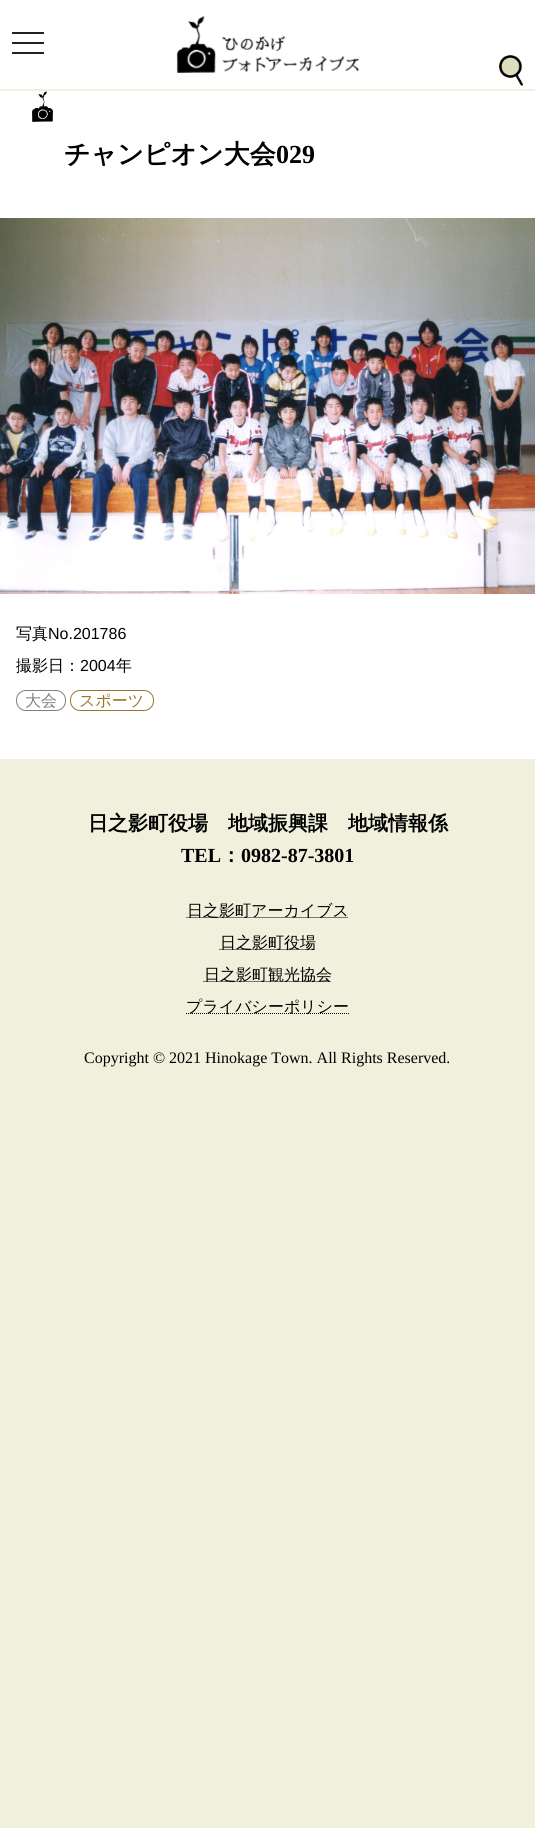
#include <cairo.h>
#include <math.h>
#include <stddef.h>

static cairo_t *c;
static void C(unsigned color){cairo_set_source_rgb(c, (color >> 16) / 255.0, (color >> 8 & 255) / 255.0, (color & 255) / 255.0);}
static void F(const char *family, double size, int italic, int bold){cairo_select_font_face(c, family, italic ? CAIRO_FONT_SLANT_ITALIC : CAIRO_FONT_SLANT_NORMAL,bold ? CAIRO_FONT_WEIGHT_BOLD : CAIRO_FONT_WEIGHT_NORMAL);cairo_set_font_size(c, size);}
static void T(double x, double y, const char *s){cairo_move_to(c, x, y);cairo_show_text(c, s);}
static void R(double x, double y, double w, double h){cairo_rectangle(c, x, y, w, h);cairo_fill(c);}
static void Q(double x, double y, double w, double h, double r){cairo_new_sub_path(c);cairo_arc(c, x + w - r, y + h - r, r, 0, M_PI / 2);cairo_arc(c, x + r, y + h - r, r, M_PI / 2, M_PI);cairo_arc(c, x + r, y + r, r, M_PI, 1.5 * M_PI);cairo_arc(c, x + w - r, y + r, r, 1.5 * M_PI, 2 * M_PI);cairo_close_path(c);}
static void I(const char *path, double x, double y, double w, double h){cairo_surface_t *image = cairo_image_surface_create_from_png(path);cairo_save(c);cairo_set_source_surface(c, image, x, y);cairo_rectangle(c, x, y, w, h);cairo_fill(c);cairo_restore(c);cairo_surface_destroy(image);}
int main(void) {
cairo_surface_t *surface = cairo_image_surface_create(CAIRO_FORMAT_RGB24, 535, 1828);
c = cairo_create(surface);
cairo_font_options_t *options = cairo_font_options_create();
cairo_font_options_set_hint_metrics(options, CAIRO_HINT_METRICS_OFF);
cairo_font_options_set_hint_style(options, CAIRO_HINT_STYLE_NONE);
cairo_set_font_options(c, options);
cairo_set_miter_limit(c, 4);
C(0xf0f0dc);
cairo_paint(c);
C(0xffffff);
R(0,0,535,89);
I("1.png",176,16,183,57);
C(0x222222);
R(12,42,32,2);
R(12,32,32,2);
R(12,52,32,2);
I("2.png",499,55,24,31);
C(0xffffff);
R(0,91,535,668);
I("3.png",32,91,21,31);
F("WenQuanYi Zen Hei",26,0,1);
C(0x000000);
T(64,163,"チャンピオン大会");
F("Liberation Serif",26,0,1);
T(276,163,"029");
I("4.png",0,218,535,376);
F("WenQuanYi Zen Hei Medium",16,0,0);
T(16,639,"写真");
F("Liberation Sans",16,0,0);
T(48,639,"No.201786");
F("WenQuanYi Zen Hei Medium",16,0,0);
T(16,671,"撮影日：");
F("Liberation Sans",16,0,0);
T(80,671,"2004");
F("WenQuanYi Zen Hei Medium",16,0,0);
T(116,671,"年");
Q(16.5,690.5,49,20,9.5);
C(0x808080);
cairo_set_line_width(c,1);
cairo_stroke(c);
T(25,706,"大会");
Q(70.5,690.5,83,20,9.5);
C(0x99762f);
cairo_stroke(c);
T(79,706,"スポーツ");
F("WenQuanYi Zen Hei",20,0,1);
C(0x000000);
T(88,830,"日之影町役場　地域振興課　地域情報係");
F("Liberation Serif",20,0,1);
T(181,862,"TEL");
F("WenQuanYi Zen Hei",20,0,1);
T(221,862,"：");
F("Liberation Serif",20,0,1);
T(241,862,"0982-87-3801");
cairo_new_path(c);
cairo_move_to(c,186.5,917.5);
cairo_line_to(c,348.5,917.5);
cairo_set_dash(c,(double[]){1,1},2,0);
cairo_stroke(c);
F("WenQuanYi Zen Hei Medium",16,0,0);
T(187,916,"日之影町アーカイブス");
cairo_new_path(c);
cairo_move_to(c,219.5,949.5);
cairo_line_to(c,315.5,949.5);
cairo_stroke(c);
T(220,948,"日之影町役場");
cairo_new_path(c);
cairo_move_to(c,203.5,981.5);
cairo_line_to(c,331.5,981.5);
cairo_stroke(c);
T(204,980,"日之影町観光協会");
cairo_new_path(c);
cairo_move_to(c,186,1013.5);
cairo_line_to(c,349,1013.5);
cairo_stroke(c);
T(186,1012,"プライバシーポリシー");
F("Liberation Serif",16,0,0);
T(84,1063,"Copyright © 2021 Hinokage Town. All Rights Reserved.");
cairo_surface_write_to_png(surface, "o.png");
cairo_font_options_destroy(options);
cairo_destroy(c);
cairo_surface_destroy(surface);
return 0;
}
